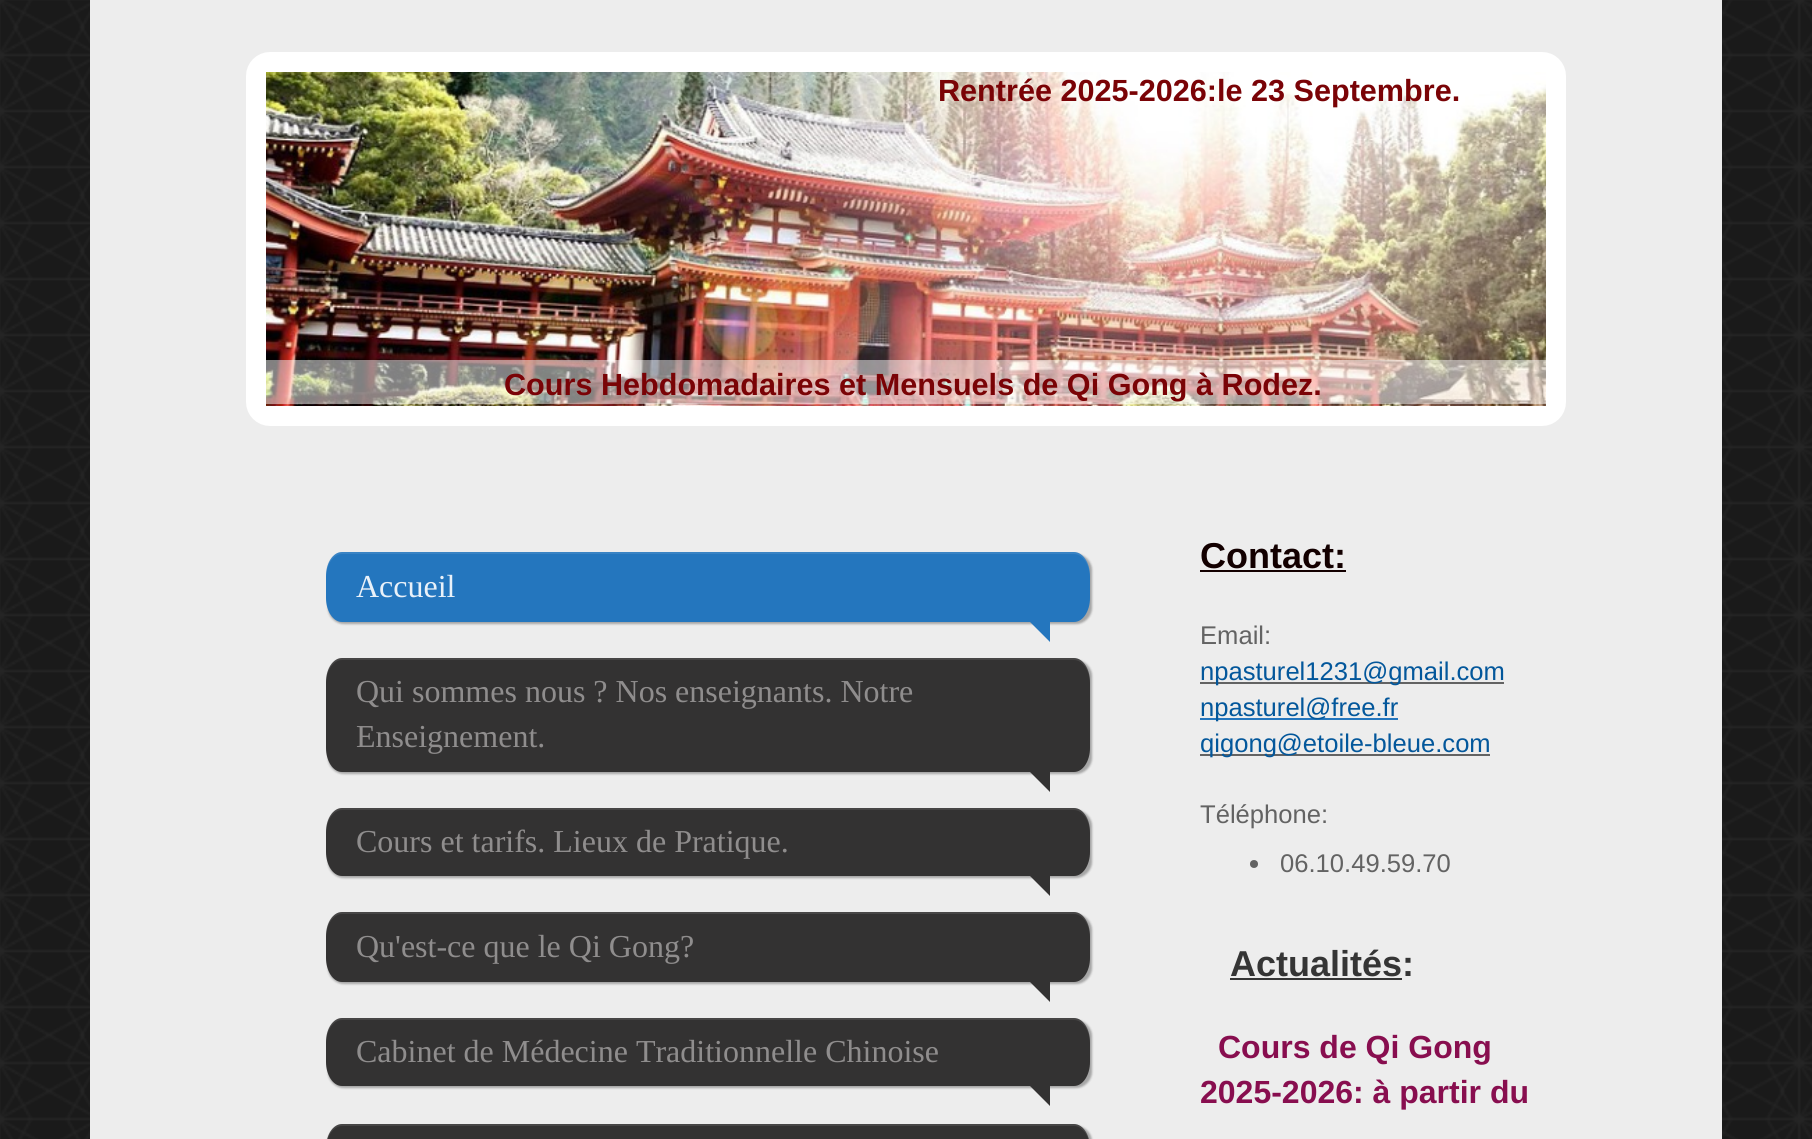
#include <cairo.h>
#include <math.h>
#include <stddef.h>

static cairo_t *c;
static void C(unsigned color){cairo_set_source_rgb(c, (color >> 16) / 255.0, (color >> 8 & 255) / 255.0, (color & 255) / 255.0);}
static void F(const char *family, double size, int italic, int bold){cairo_select_font_face(c, family, italic ? CAIRO_FONT_SLANT_ITALIC : CAIRO_FONT_SLANT_NORMAL,bold ? CAIRO_FONT_WEIGHT_BOLD : CAIRO_FONT_WEIGHT_NORMAL);cairo_set_font_size(c, size);}
static void T(double x, double y, const char *s){cairo_move_to(c, x, y);cairo_show_text(c, s);}
static void R(double x, double y, double w, double h){cairo_rectangle(c, x, y, w, h);cairo_fill(c);}
static void Q(double x, double y, double w, double h, double r){cairo_new_sub_path(c);cairo_arc(c, x + w - r, y + h - r, r, 0, M_PI / 2);cairo_arc(c, x + r, y + h - r, r, M_PI / 2, M_PI);cairo_arc(c, x + r, y + r, r, M_PI, 1.5 * M_PI);cairo_arc(c, x + w - r, y + r, r, 1.5 * M_PI, 2 * M_PI);cairo_close_path(c);}
static void S(double x, double y, double w, double h, double r, double blur, double alpha){cairo_push_group_with_content(c, CAIRO_CONTENT_ALPHA);cairo_set_operator(c, CAIRO_OPERATOR_SOURCE);for (int i = 15; i >= -15 && fmin(w, h) + blur * i / 3 > 0; i -= 2) {double e = blur * i / 6;cairo_set_source_rgba(c, 0, 0, 0, alpha * erfc((i - 1) / 8.5) / 2);Q(x - e, y - e, w + 2 * e, h + 2 * e, fmax(0, fmin(r + e + blur * .6, fmin(w, h) / 2 + e)));cairo_fill(c);}cairo_pattern_t *soft = cairo_pop_group(c);cairo_mask(c, soft);cairo_pattern_destroy(soft);}
static void I(const char *path, double x, double y, double w, double h){cairo_surface_t *image = cairo_image_surface_create_from_png(path);cairo_save(c);cairo_set_source_surface(c, image, x, y);cairo_rectangle(c, x, y, w, h);cairo_fill(c);cairo_restore(c);cairo_surface_destroy(image);}
int main(void) {
cairo_surface_t *surface = cairo_image_surface_create(CAIRO_FORMAT_RGB24, 1812, 1139);
c = cairo_create(surface);
cairo_font_options_t *options = cairo_font_options_create();
cairo_font_options_set_hint_metrics(options, CAIRO_HINT_METRICS_OFF);
cairo_font_options_set_hint_style(options, CAIRO_HINT_STYLE_NONE);
cairo_set_font_options(c, options);
cairo_set_miter_limit(c, 4);
C(0x1a1a1a);
cairo_paint(c);
I("1.png",0,0,1812,1139);
C(0xededed);
R(90,0,1632,1139);
Q(256,62,1300,354,14);
C(0xffffff);
cairo_set_line_width(c,20);
cairo_stroke(c);
I("2.png",266,72,1280,334);
F("Liberation Sans",30.6,0,1);
C(0x7a0306);
T(938,101,"Rentrée 2025-2026:le 23 Septembre.");
cairo_set_source_rgba(c,1,1,1,0.5);
R(266,360,1280,44);
C(0x7a0306);
T(504,395,"Cours Hebdomadaires et Mensuels de Qi Gong à Rodez.");
C(0x000000);
S(328,554,764,70,16,1,.3);
C(0x2476be);
cairo_new_path(c);
cairo_move_to(c,342,552);
cairo_line_to(c,1074,552);
cairo_curve_to(c,1083,552,1090,563,1090,576);
cairo_line_to(c,1090,598);
cairo_curve_to(c,1090,611,1083,622,1074,622);
cairo_line_to(c,342,622);
cairo_curve_to(c,333,622,326,611,326,598);
cairo_line_to(c,326,576);
cairo_curve_to(c,326,563,333,552,342,552);
cairo_close_path(c);
cairo_fill(c);
cairo_set_source_rgba(c,1,1,1,0.1);
cairo_new_path(c);
cairo_move_to(c,342,554);
cairo_line_to(c,1074,554);
cairo_curve_to(c,1083,554,1090,565,1090,578);
cairo_line_to(c,1090,576);
cairo_curve_to(c,1090,563,1083,552,1074,552);
cairo_line_to(c,342,552);
cairo_curve_to(c,333,552,326,563,326,576);
cairo_line_to(c,326,578);
cairo_curve_to(c,326,565,333,554,342,554);
cairo_close_path(c);
cairo_fill(c);
F("Liberation Serif",32,0,0);
C(0xe9f1f9);
T(356,597,"Accueil");
C(0x2476be);
cairo_new_path(c);
cairo_move_to(c,1030,622);
cairo_line_to(c,1050,622);
cairo_line_to(c,1050,642);
cairo_close_path(c);
cairo_fill(c);
C(0x000000);
S(328,660,764,114,16,1,.3);
C(0x333232);
cairo_new_path(c);
cairo_move_to(c,342,658);
cairo_line_to(c,1074,658);
cairo_curve_to(c,1083,658,1090,669,1090,682);
cairo_line_to(c,1090,748);
cairo_curve_to(c,1090,761,1083,772,1074,772);
cairo_line_to(c,342,772);
cairo_curve_to(c,333,772,326,761,326,748);
cairo_line_to(c,326,682);
cairo_curve_to(c,326,669,333,658,342,658);
cairo_close_path(c);
cairo_fill(c);
cairo_set_source_rgba(c,1,1,1,0.1);
cairo_new_path(c);
cairo_move_to(c,342,660);
cairo_line_to(c,1074,660);
cairo_curve_to(c,1083,660,1090,671,1090,684);
cairo_line_to(c,1090,682);
cairo_curve_to(c,1090,669,1083,658,1074,658);
cairo_line_to(c,342,658);
cairo_curve_to(c,333,658,326,669,326,682);
cairo_line_to(c,326,684);
cairo_curve_to(c,326,671,333,660,342,660);
cairo_close_path(c);
cairo_fill(c);
C(0x8f8d8d);
T(356,702,"Qui sommes nous ? Nos enseignants. Notre");
T(356,747,"Enseignement.");
C(0x333232);
cairo_new_path(c);
cairo_move_to(c,1030,772);
cairo_line_to(c,1050,772);
cairo_line_to(c,1050,792);
cairo_close_path(c);
cairo_fill(c);
C(0x000000);
S(328,810,764,68,16,1,.3);
C(0x333232);
cairo_new_path(c);
cairo_move_to(c,342,808);
cairo_line_to(c,1074,808);
cairo_curve_to(c,1083,808,1090,819,1090,832);
cairo_line_to(c,1090,852);
cairo_curve_to(c,1090,865,1083,876,1074,876);
cairo_line_to(c,342,876);
cairo_curve_to(c,333,876,326,865,326,852);
cairo_line_to(c,326,832);
cairo_curve_to(c,326,819,333,808,342,808);
cairo_close_path(c);
cairo_fill(c);
cairo_set_source_rgba(c,1,1,1,0.1);
cairo_new_path(c);
cairo_move_to(c,342,810);
cairo_line_to(c,1074,810);
cairo_curve_to(c,1083,810,1090,821,1090,834);
cairo_line_to(c,1090,832);
cairo_curve_to(c,1090,819,1083,808,1074,808);
cairo_line_to(c,342,808);
cairo_curve_to(c,333,808,326,819,326,832);
cairo_line_to(c,326,834);
cairo_curve_to(c,326,821,333,810,342,810);
cairo_close_path(c);
cairo_fill(c);
C(0x8f8d8d);
T(356,852,"Cours et tarifs. Lieux de Pratique.");
C(0x333232);
cairo_new_path(c);
cairo_move_to(c,1030,876);
cairo_line_to(c,1050,876);
cairo_line_to(c,1050,896);
cairo_close_path(c);
cairo_fill(c);
C(0x000000);
S(328,914,764,70,16,1,.3);
C(0x333232);
cairo_new_path(c);
cairo_move_to(c,342,912);
cairo_line_to(c,1074,912);
cairo_curve_to(c,1083,912,1090,923,1090,936);
cairo_line_to(c,1090,958);
cairo_curve_to(c,1090,971,1083,982,1074,982);
cairo_line_to(c,342,982);
cairo_curve_to(c,333,982,326,971,326,958);
cairo_line_to(c,326,936);
cairo_curve_to(c,326,923,333,912,342,912);
cairo_close_path(c);
cairo_fill(c);
cairo_set_source_rgba(c,1,1,1,0.1);
cairo_new_path(c);
cairo_move_to(c,342,914);
cairo_line_to(c,1074,914);
cairo_curve_to(c,1083,914,1090,925,1090,938);
cairo_line_to(c,1090,936);
cairo_curve_to(c,1090,923,1083,912,1074,912);
cairo_line_to(c,342,912);
cairo_curve_to(c,333,912,326,923,326,936);
cairo_line_to(c,326,938);
cairo_curve_to(c,326,925,333,914,342,914);
cairo_close_path(c);
cairo_fill(c);
C(0x8f8d8d);
T(356,957,"Qu'est-ce que le Qi Gong?");
C(0x333232);
cairo_new_path(c);
cairo_move_to(c,1030,982);
cairo_line_to(c,1050,982);
cairo_line_to(c,1050,1002);
cairo_close_path(c);
cairo_fill(c);
C(0x000000);
S(328,1020,764,68,16,1,.3);
C(0x333232);
cairo_new_path(c);
cairo_move_to(c,342,1018);
cairo_line_to(c,1074,1018);
cairo_curve_to(c,1083,1018,1090,1029,1090,1042);
cairo_line_to(c,1090,1062);
cairo_curve_to(c,1090,1075,1083,1086,1074,1086);
cairo_line_to(c,342,1086);
cairo_curve_to(c,333,1086,326,1075,326,1062);
cairo_line_to(c,326,1042);
cairo_curve_to(c,326,1029,333,1018,342,1018);
cairo_close_path(c);
cairo_fill(c);
cairo_set_source_rgba(c,1,1,1,0.1);
cairo_new_path(c);
cairo_move_to(c,342,1020);
cairo_line_to(c,1074,1020);
cairo_curve_to(c,1083,1020,1090,1031,1090,1044);
cairo_line_to(c,1090,1042);
cairo_curve_to(c,1090,1029,1083,1018,1074,1018);
cairo_line_to(c,342,1018);
cairo_curve_to(c,333,1018,326,1029,326,1042);
cairo_line_to(c,326,1044);
cairo_curve_to(c,326,1031,333,1020,342,1020);
cairo_close_path(c);
cairo_fill(c);
C(0x8f8d8d);
T(356,1062,"Cabinet de Médecine Traditionnelle Chinoise");
C(0x333232);
cairo_new_path(c);
cairo_move_to(c,1030,1086);
cairo_line_to(c,1050,1086);
cairo_line_to(c,1050,1106);
cairo_close_path(c);
cairo_fill(c);
C(0x000000);
S(328,1126,764,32,16,1,.3);
C(0x333232);
cairo_new_path(c);
cairo_move_to(c,342,1124);
cairo_line_to(c,1074,1124);
cairo_curve_to(c,1083,1124,1090,1135,1090,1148);
cairo_line_to(c,1090,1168);
cairo_curve_to(c,1090,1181,1083,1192,1074,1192);
cairo_line_to(c,342,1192);
cairo_curve_to(c,333,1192,326,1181,326,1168);
cairo_line_to(c,326,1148);
cairo_curve_to(c,326,1135,333,1124,342,1124);
cairo_close_path(c);
cairo_fill(c);
cairo_set_source_rgba(c,1,1,1,0.1);
cairo_new_path(c);
cairo_move_to(c,342,1126);
cairo_line_to(c,1074,1126);
cairo_curve_to(c,1083,1126,1090,1137,1090,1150);
cairo_line_to(c,1090,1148);
cairo_curve_to(c,1090,1135,1083,1124,1074,1124);
cairo_line_to(c,342,1124);
cairo_curve_to(c,333,1124,326,1135,326,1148);
cairo_line_to(c,326,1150);
cairo_curve_to(c,326,1137,333,1126,342,1126);
cairo_close_path(c);
cairo_fill(c);
F("Liberation Sans",36,0,1);
C(0x130000);
T(1200,568,"Contact:");
R(1200,570,146,2);
F("Liberation Sans",25.6,0,0);
C(0x636363);
T(1200,644,"Email:");
R(1200,682,304,2);
C(0x03579b);
T(1200,680,"npasturel1231@gmail.com");
C(0x2476be);
R(1200,718,198,2);
C(0x03579b);
T(1200,716,"npasturel@free.fr");
C(0x636363);
R(1200,754,290,2);
C(0x03579b);
T(1200,752,"qigong@etoile-bleue.com");
C(0x636363);
T(1200,823,"Téléphone:");
cairo_new_path(c);
cairo_arc(c,1254,864,4,0,2 * M_PI);
cairo_fill(c);
T(1280,872,"06.10.49.59.70");
F("Liberation Sans",36,0,1);
C(0x353535);
T(1230,976,"Actualités:");
R(1230,978,172,2);
F("Liberation Sans",32,0,1);
C(0x880e4f);
T(1218,1058,"Cours de Qi Gong");
T(1200,1103,"2025-2026: à partir du");
cairo_surface_write_to_png(surface, "o.png");
cairo_font_options_destroy(options);
cairo_destroy(c);
cairo_surface_destroy(surface);
return 0;
}
